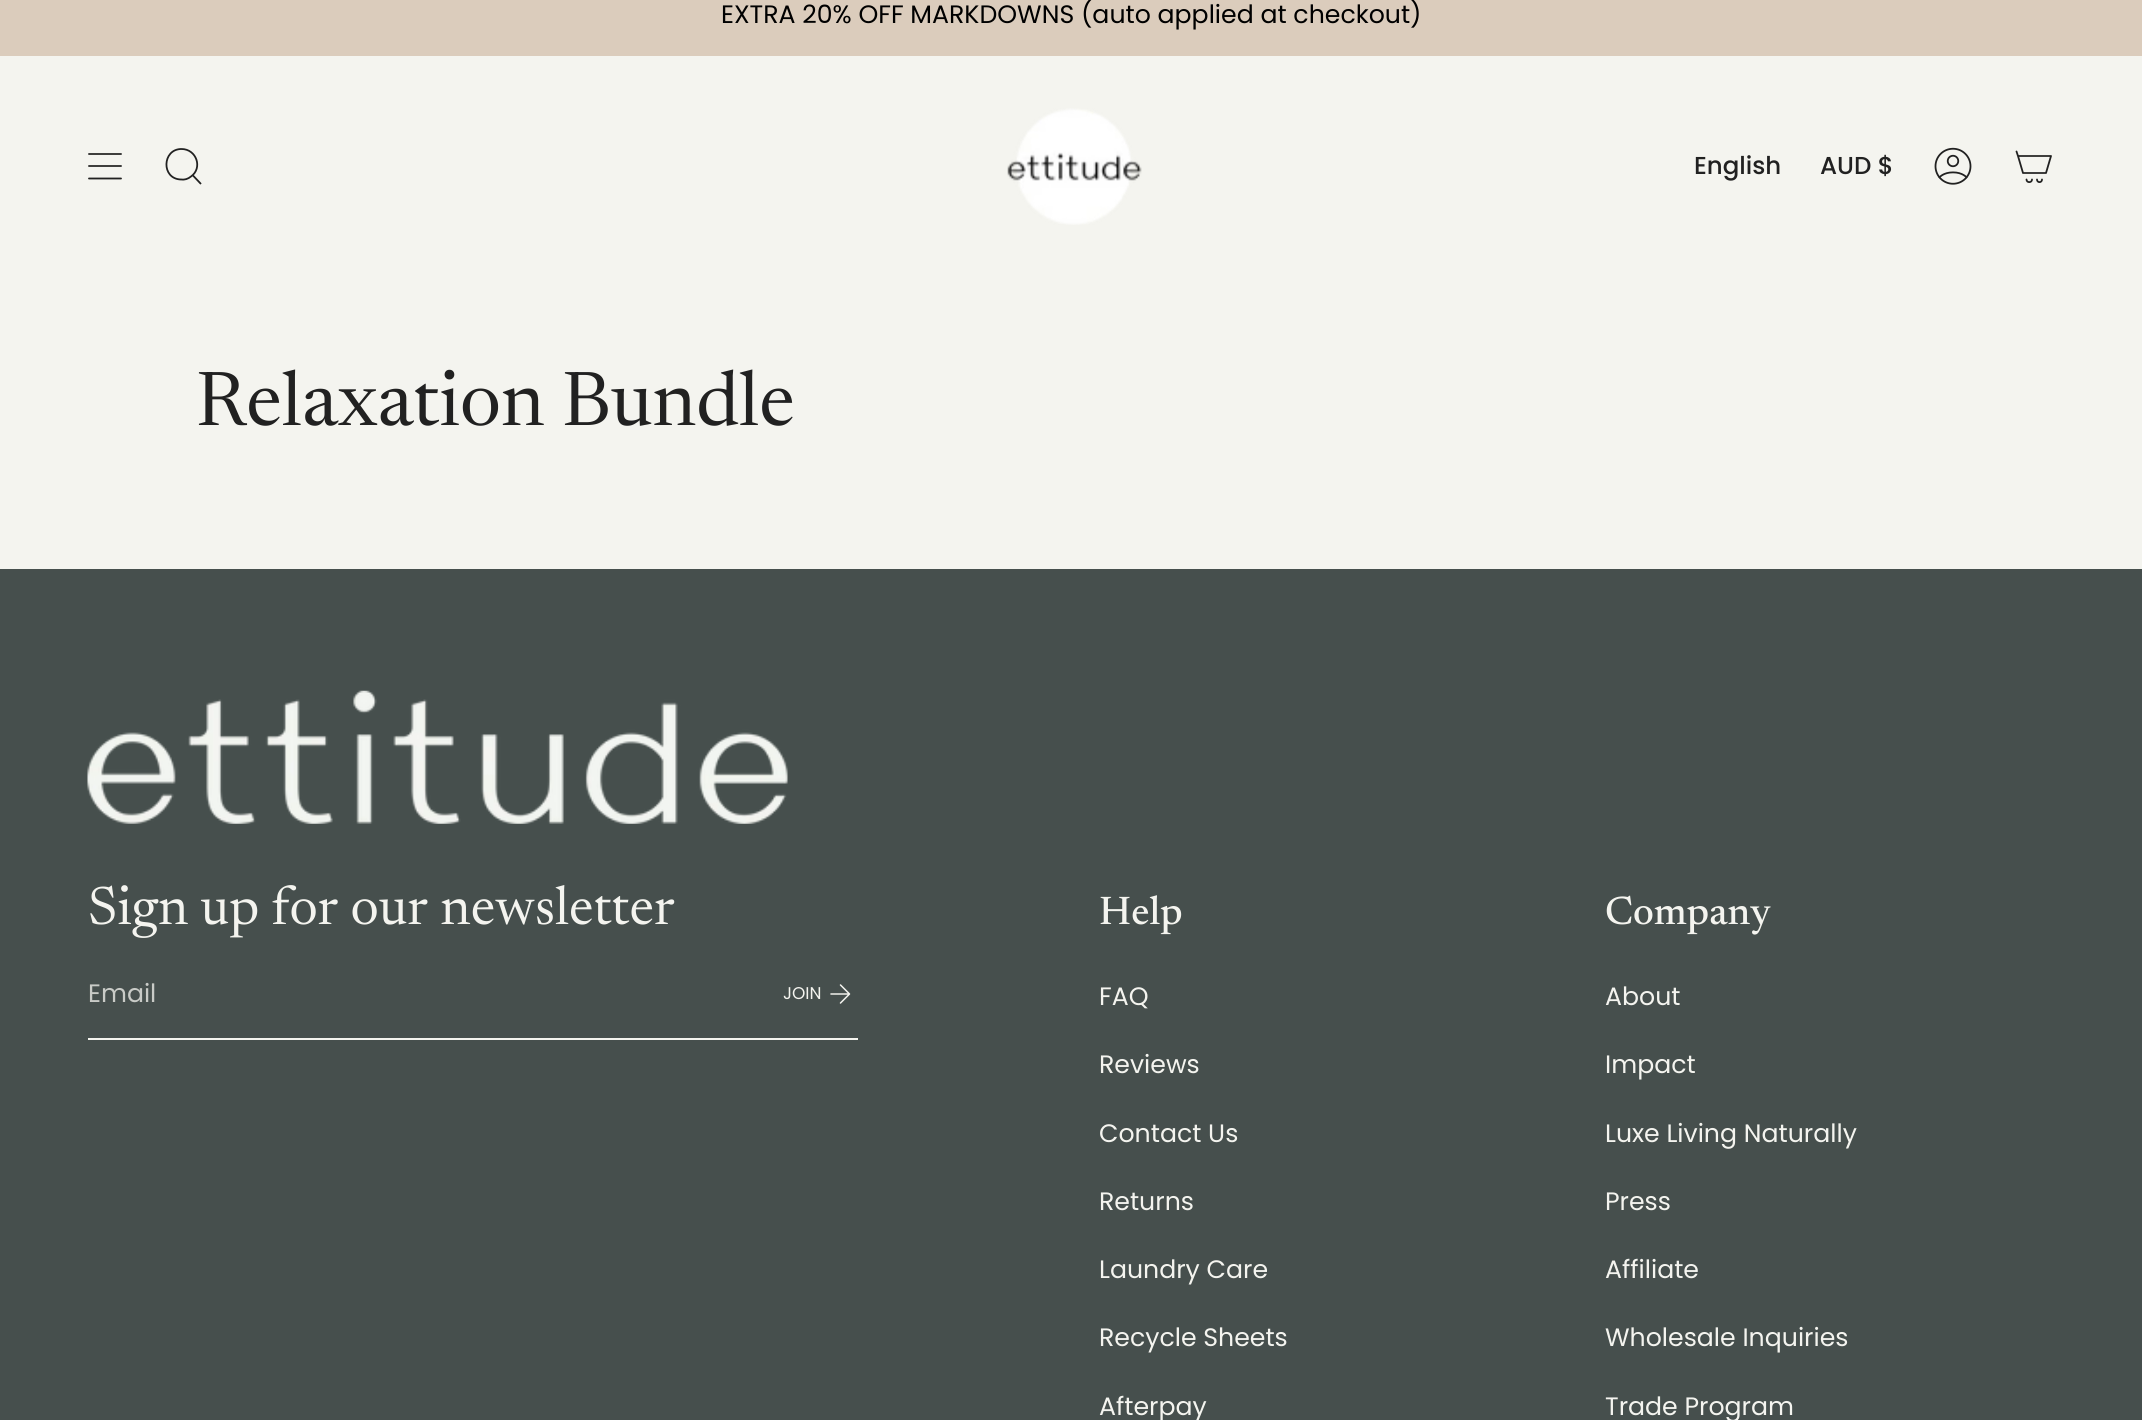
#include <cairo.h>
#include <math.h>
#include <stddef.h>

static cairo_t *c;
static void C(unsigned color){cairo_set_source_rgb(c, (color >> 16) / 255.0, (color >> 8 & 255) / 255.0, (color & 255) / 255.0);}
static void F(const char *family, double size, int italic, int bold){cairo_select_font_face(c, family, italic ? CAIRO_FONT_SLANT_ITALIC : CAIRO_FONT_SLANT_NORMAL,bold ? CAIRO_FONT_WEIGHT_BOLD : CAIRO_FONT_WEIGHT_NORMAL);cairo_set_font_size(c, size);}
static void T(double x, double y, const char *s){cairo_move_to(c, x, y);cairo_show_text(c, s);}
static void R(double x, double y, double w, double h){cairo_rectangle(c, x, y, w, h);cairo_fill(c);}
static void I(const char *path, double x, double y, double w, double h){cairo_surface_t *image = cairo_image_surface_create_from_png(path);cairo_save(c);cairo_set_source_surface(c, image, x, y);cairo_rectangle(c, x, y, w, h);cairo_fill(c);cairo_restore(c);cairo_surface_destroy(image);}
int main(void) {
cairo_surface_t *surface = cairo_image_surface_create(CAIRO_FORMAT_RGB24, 2142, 1420);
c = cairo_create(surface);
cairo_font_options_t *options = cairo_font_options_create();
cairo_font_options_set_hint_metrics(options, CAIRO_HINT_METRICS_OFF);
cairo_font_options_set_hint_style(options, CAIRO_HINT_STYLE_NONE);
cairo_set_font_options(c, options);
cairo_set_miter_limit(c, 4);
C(0xf4f4ef);
cairo_paint(c);
C(0xdbccbc);
R(0,0,2142,56);
F("Poppins",25.2,0,0);
C(0x000000);
T(721,23,"EXTRA 20% OFF MARKDOWNS (auto applied at checkout)");
cairo_new_path(c);
cairo_move_to(c,89,154);
cairo_line_to(c,121,154);
cairo_move_to(c,89,166);
cairo_line_to(c,121,166);
cairo_move_to(c,89,178.5);
cairo_line_to(c,121,178.5);
C(0x212121);
cairo_set_line_width(c,1.8);
cairo_set_line_cap(c,CAIRO_LINE_CAP_ROUND);
cairo_set_line_join(c,CAIRO_LINE_JOIN_ROUND);
cairo_stroke(c);
cairo_new_path(c);
cairo_move_to(c,181.5,149);
cairo_curve_to(c,196.5,149,203,168,191,176.5);
cairo_curve_to(c,188,179,184.5,180,181,179.5);
cairo_curve_to(c,161,179,162,149,181.5,149);
cairo_close_path(c);
cairo_move_to(c,192.5,175);
cairo_line_to(c,201,184);
cairo_set_line_cap(c,CAIRO_LINE_CAP_BUTT);
cairo_set_line_join(c,CAIRO_LINE_JOIN_MITER);
cairo_stroke(c);
I("1.png",1007,108,135,117);
F("Poppins Medium",24.5,0,0);
T(1694,174,"English");
T(1820,174,"AUD $");
I("2.png",1934,147,38,38);
cairo_new_path(c);
cairo_move_to(c,2018,156);
cairo_line_to(c,2051,156);
cairo_line_to(c,2046,173);
cairo_line_to(c,2023,173);
cairo_close_path(c);
cairo_move_to(c,2018,156);
cairo_line_to(c,2016.5,151.5);
cairo_move_to(c,2032,179.5);
cairo_curve_to(c,2032,183,2026.5,183,2026.5,179.5);
cairo_move_to(c,2042,179.5);
cairo_curve_to(c,2042,183,2037,183,2037,179.5);
cairo_set_line_cap(c,CAIRO_LINE_CAP_ROUND);
cairo_set_line_join(c,CAIRO_LINE_JOIN_ROUND);
cairo_stroke(c);
F("Newsreader",76.5,0,0);
T(196,425,"Relaxation Bundle");
C(0x464f4d);
R(0,569,2142,851);
I("3.png",87,690,701,134);
F("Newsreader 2",54.25,0,0);
C(0xf4f4ef);
T(88,924,"Sign up for our newsletter");
R(88,1038,770,2);
F("Poppins",25.2,0,0);
C(0xc9cbc7);
T(88,1002,"Email");
F("Poppins",17,0,0);
C(0xf4f4ef);
T(783,999,"JOIN");
cairo_new_path(c);
cairo_move_to(c,831,994);
cairo_line_to(c,849.5,994);
cairo_move_to(c,849.5,994);
cairo_line_to(c,840.5,985);
cairo_move_to(c,849.5,994);
cairo_line_to(c,840.5,1003);
cairo_set_line_width(c,1.5);
cairo_stroke(c);
F("Newsreader Medium",40.25,0,0);
T(1099,924,"Help");
F("Poppins",25.2,0,0);
T(1099,1005,"FAQ");
T(1099,1073,"Reviews");
T(1099,1142,"Contact Us");
T(1099,1210,"Returns");
T(1099,1278,"Laundry Care");
T(1099,1346,"Recycle Sheets");
T(1099,1415,"Afterpay");
F("Newsreader Medium",40.25,0,0);
T(1605,924,"Company");
F("Poppins",25.2,0,0);
T(1605,1005,"About");
T(1605,1073,"Impact");
T(1605,1142,"Luxe Living Naturally");
T(1605,1210,"Press");
T(1605,1278,"Affiliate");
T(1605,1346,"Wholesale Inquiries");
T(1605,1415,"Trade Program");
cairo_surface_write_to_png(surface, "o.png");
cairo_font_options_destroy(options);
cairo_destroy(c);
cairo_surface_destroy(surface);
return 0;
}
